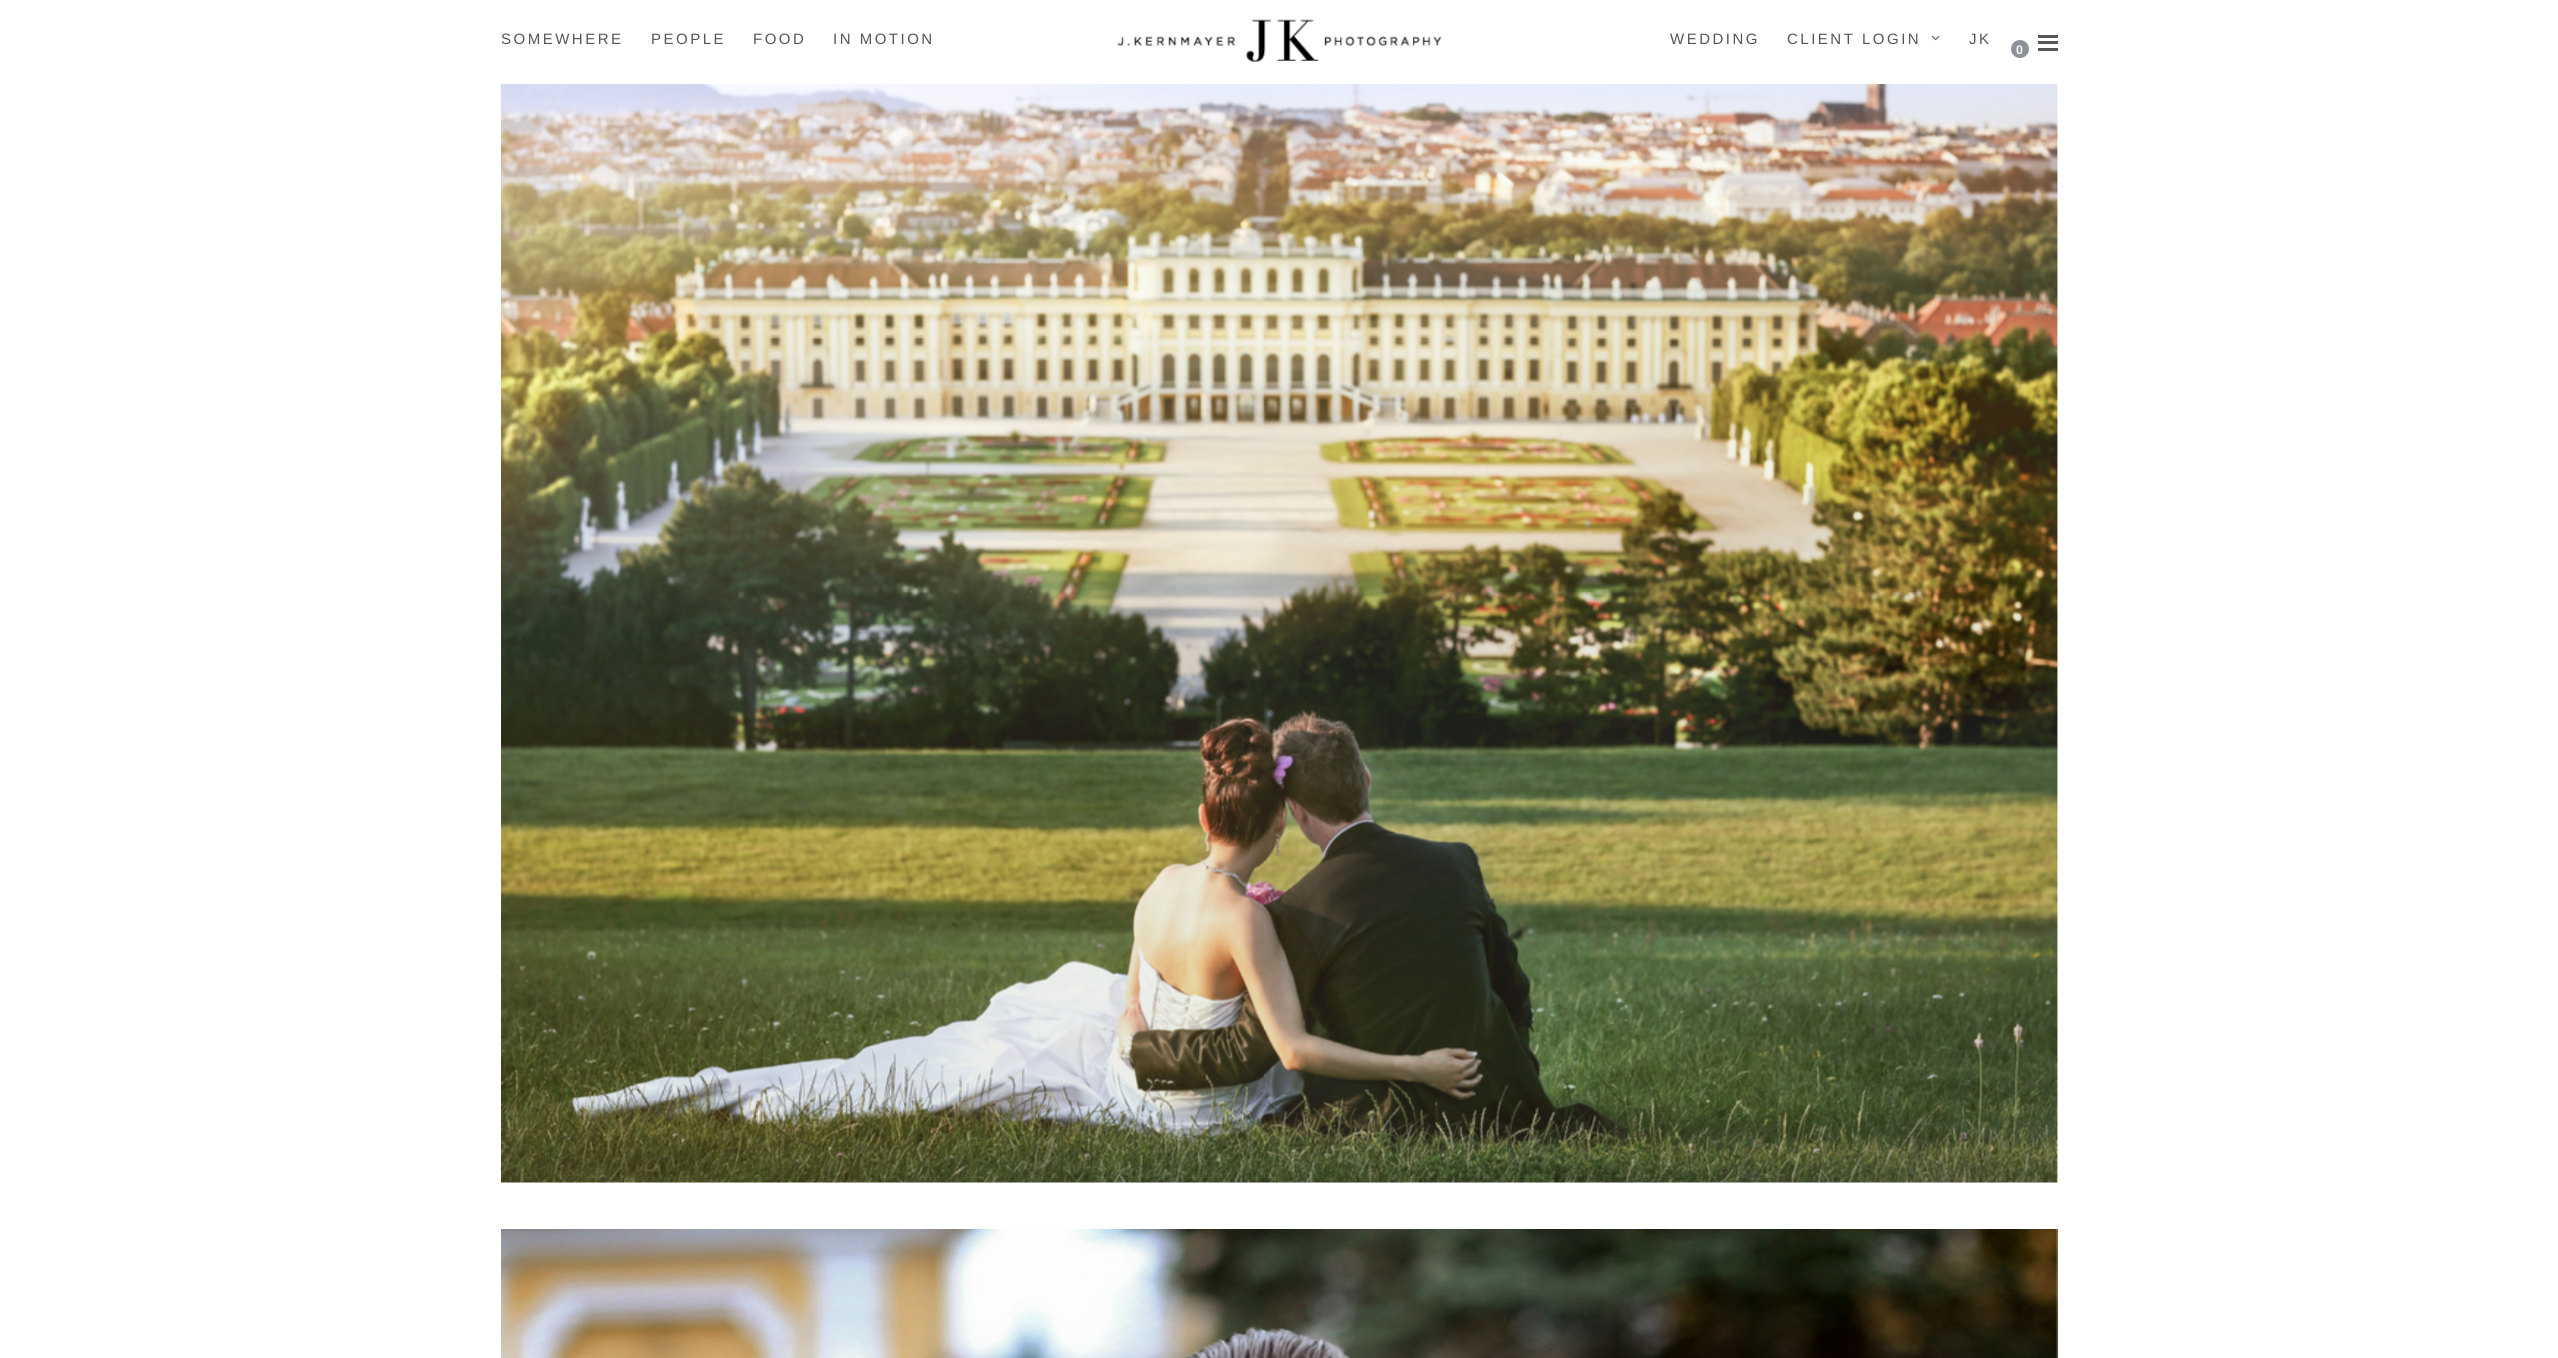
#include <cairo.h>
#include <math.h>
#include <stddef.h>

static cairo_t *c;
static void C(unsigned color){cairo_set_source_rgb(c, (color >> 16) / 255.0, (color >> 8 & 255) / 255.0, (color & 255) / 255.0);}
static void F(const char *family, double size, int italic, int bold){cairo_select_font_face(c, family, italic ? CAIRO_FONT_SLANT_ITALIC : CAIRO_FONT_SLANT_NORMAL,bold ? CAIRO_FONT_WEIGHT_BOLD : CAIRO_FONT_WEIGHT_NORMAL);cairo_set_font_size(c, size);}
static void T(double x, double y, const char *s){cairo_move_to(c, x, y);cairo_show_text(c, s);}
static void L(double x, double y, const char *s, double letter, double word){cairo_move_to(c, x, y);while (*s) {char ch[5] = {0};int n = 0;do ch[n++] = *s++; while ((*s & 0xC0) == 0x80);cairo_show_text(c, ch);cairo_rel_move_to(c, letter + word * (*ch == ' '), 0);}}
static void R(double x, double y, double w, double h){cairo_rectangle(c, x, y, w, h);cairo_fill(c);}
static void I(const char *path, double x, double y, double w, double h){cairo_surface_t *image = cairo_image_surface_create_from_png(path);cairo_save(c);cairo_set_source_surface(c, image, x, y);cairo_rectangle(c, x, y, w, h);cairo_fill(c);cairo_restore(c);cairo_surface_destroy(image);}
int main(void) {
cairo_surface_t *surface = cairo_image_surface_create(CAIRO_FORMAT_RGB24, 2558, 1358);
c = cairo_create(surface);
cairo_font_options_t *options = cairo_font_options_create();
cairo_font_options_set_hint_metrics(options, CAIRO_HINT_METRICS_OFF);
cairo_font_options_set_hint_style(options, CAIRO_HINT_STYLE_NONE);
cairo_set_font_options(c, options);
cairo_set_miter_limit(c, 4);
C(0xffffff);
cairo_paint(c);
I("1.png",1117,19,325,43);
F("Liberation Sans",15,0,0);
C(0x555555);
L(501,44,"SOMEWHERE",2.5,0);
L(651,44,"PEOPLE",2.5,0);
L(753,44,"FOOD",2.5,0);
L(833,44,"IN MOTION",2.5,0);
L(1670,44,"WEDDING",2.5,0);
L(1787,44,"CLIENT LOGIN",2.5,0);
I("2.png",1931,35,9,6);
L(1969,44,"JK",2.5,0);
C(0x8d9199);
cairo_new_path(c);
cairo_arc(c,2020,49,9,0,2 * M_PI);
cairo_fill(c);
F("Roboto SemiBold",12,0,0);
C(0xffffff);
T(2016,54,"0");
C(0x555555);
R(2038,35,20,3);
R(2038,41,20,3);
R(2038,48,20,3);
I("3.png",501,84,1557,1099);
I("4.png",501,1229,1557,129);
cairo_surface_write_to_png(surface, "o.png");
cairo_font_options_destroy(options);
cairo_destroy(c);
cairo_surface_destroy(surface);
return 0;
}
